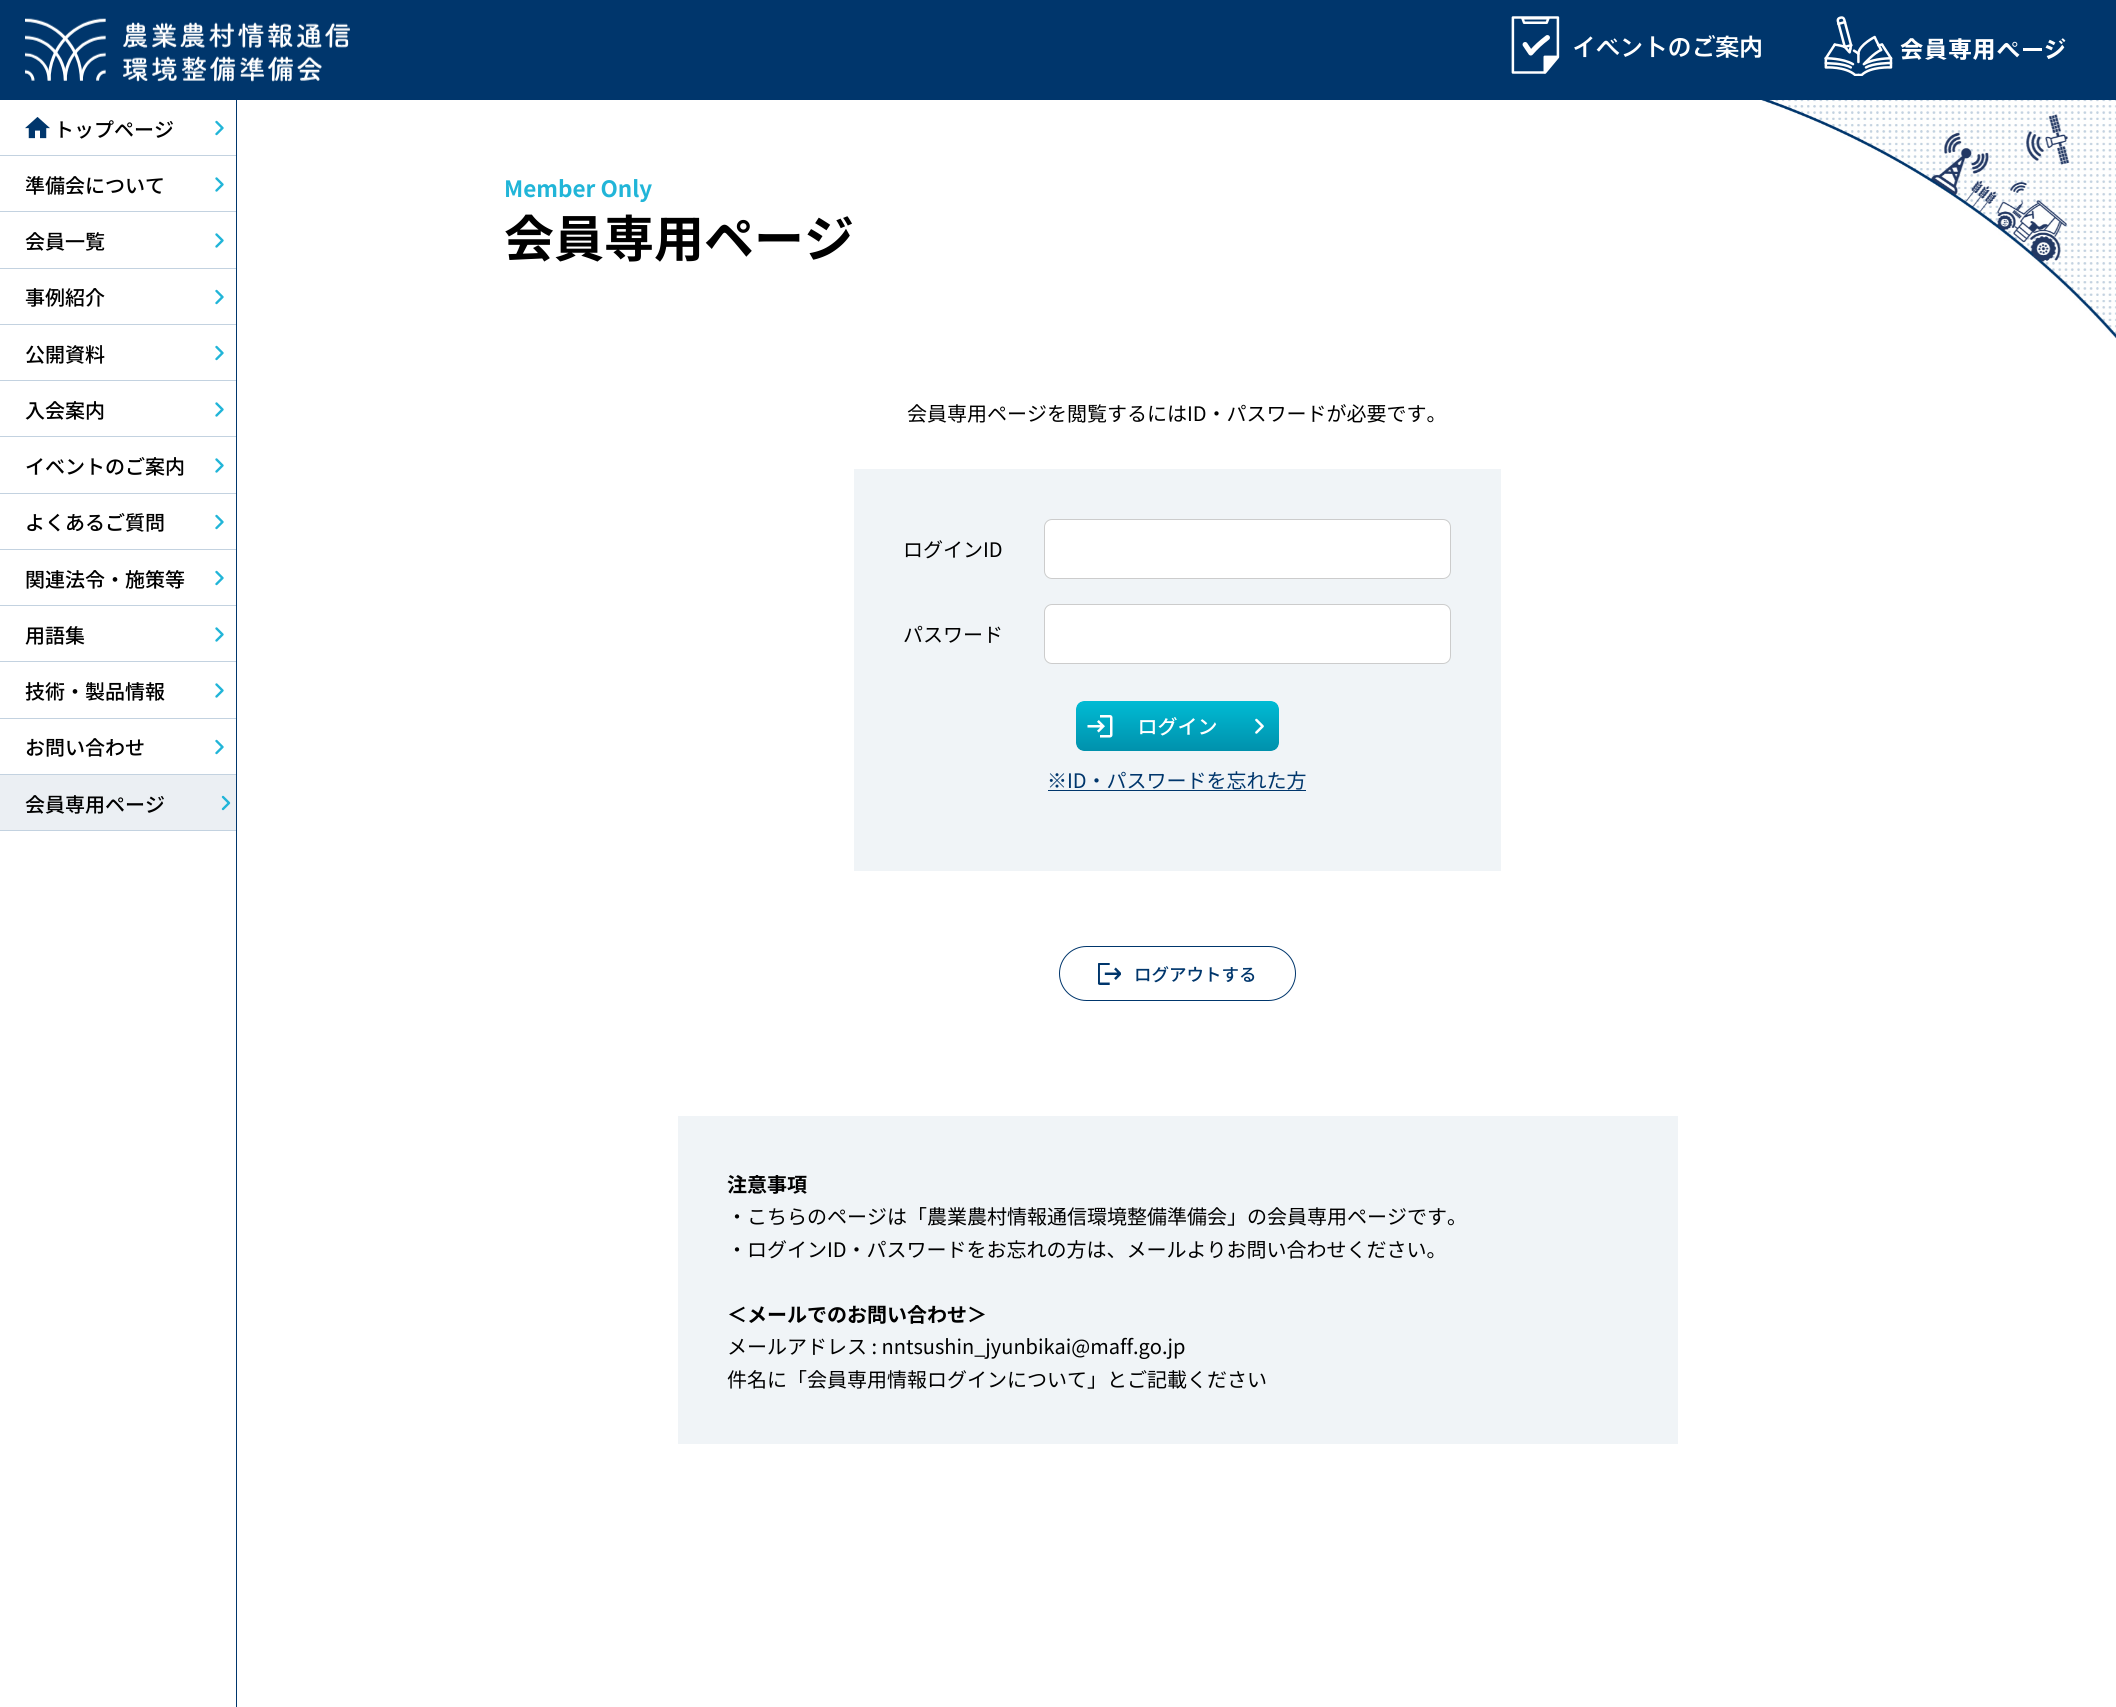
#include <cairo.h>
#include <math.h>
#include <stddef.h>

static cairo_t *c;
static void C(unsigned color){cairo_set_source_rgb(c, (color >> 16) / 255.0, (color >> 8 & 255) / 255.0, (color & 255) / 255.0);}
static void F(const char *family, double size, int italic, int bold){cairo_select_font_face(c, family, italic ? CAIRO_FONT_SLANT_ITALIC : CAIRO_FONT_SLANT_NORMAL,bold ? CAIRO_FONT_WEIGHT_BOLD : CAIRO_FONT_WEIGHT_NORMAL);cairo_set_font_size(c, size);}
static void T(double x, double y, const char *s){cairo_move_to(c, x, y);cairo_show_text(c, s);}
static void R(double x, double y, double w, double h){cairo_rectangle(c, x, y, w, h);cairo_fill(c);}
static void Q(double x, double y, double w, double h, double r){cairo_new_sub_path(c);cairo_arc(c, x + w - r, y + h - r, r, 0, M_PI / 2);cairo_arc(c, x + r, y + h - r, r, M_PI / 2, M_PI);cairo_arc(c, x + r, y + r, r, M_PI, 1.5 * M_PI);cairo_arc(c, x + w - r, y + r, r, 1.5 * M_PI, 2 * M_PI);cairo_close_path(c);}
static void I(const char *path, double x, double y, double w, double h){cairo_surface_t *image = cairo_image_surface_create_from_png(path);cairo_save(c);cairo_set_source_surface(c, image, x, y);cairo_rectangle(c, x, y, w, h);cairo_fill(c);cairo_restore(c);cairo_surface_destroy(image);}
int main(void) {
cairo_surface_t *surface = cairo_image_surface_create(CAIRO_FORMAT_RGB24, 2116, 1707);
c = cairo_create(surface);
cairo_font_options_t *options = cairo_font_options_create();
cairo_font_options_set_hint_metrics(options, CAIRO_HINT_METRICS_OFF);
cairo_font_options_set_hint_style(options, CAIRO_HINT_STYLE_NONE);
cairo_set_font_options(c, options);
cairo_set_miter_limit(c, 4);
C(0xffffff);
cairo_paint(c);
C(0x00366c);
R(0,0,2116,100);
I("1.png",25,18,325,64);
I("2.png",1511,16,250,58);
I("3.png",1824,16,242,60);
R(236,100,1,1607);
cairo_new_path(c);
cairo_move_to(c,216.5,122);
cairo_line_to(c,222.5,128);
cairo_line_to(c,216.5,134);
C(0x21b5d8);
cairo_set_line_width(c,2.4);
cairo_set_line_cap(c,CAIRO_LINE_CAP_ROUND);
cairo_set_line_join(c,CAIRO_LINE_JOIN_ROUND);
cairo_stroke(c);
C(0xc3d2e0);
R(0,155,236,1);
I("4.png",25,117,25,22);
F("Noto Sans JP Medium",20,0,0);
C(0x000000);
T(54,137,"トップページ");
cairo_new_path(c);
cairo_move_to(c,216.5,178.5);
cairo_line_to(c,222.5,184.5);
cairo_line_to(c,216.5,190.5);
C(0x21b5d8);
cairo_stroke(c);
C(0xc3d2e0);
R(0,211,236,1);
C(0x000000);
T(25,193,"準備会について");
cairo_new_path(c);
cairo_move_to(c,216.5,234.5);
cairo_line_to(c,222.5,240.5);
cairo_line_to(c,216.5,246.5);
C(0x21b5d8);
cairo_stroke(c);
C(0xc3d2e0);
R(0,268,236,1);
C(0x000000);
T(25,249,"会員一覧");
cairo_new_path(c);
cairo_move_to(c,216.5,291);
cairo_line_to(c,222.5,297);
cairo_line_to(c,216.5,303);
C(0x21b5d8);
cairo_stroke(c);
C(0xc3d2e0);
R(0,324,236,1);
C(0x000000);
T(25,305,"事例紹介");
cairo_new_path(c);
cairo_move_to(c,216.5,347);
cairo_line_to(c,222.5,353);
cairo_line_to(c,216.5,359);
C(0x21b5d8);
cairo_stroke(c);
C(0xc3d2e0);
R(0,380,236,1);
C(0x000000);
T(25,362,"公開資料");
cairo_new_path(c);
cairo_move_to(c,216.5,403.5);
cairo_line_to(c,222.5,409.5);
cairo_line_to(c,216.5,415.5);
C(0x21b5d8);
cairo_stroke(c);
C(0xc3d2e0);
R(0,436,236,1);
C(0x000000);
T(25,418,"入会案内");
cairo_new_path(c);
cairo_move_to(c,216.5,459.5);
cairo_line_to(c,222.5,465.5);
cairo_line_to(c,216.5,471.5);
C(0x21b5d8);
cairo_stroke(c);
C(0xc3d2e0);
R(0,493,236,1);
C(0x000000);
T(25,474,"イベントのご案内");
cairo_new_path(c);
cairo_move_to(c,216.5,516);
cairo_line_to(c,222.5,522);
cairo_line_to(c,216.5,528);
C(0x21b5d8);
cairo_stroke(c);
C(0xc3d2e0);
R(0,549,236,1);
C(0x000000);
T(25,530,"よくあるご質問");
cairo_new_path(c);
cairo_move_to(c,216.5,572);
cairo_line_to(c,222.5,578);
cairo_line_to(c,216.5,584);
C(0x21b5d8);
cairo_stroke(c);
C(0xc3d2e0);
R(0,605,236,1);
C(0x000000);
T(25,587,"関連法令・施策等");
cairo_new_path(c);
cairo_move_to(c,216.5,628.5);
cairo_line_to(c,222.5,634.5);
cairo_line_to(c,216.5,640.5);
C(0x21b5d8);
cairo_stroke(c);
C(0xc3d2e0);
R(0,661,236,1);
C(0x000000);
T(25,643,"用語集");
cairo_new_path(c);
cairo_move_to(c,216.5,684.5);
cairo_line_to(c,222.5,690.5);
cairo_line_to(c,216.5,696.5);
C(0x21b5d8);
cairo_stroke(c);
C(0xc3d2e0);
R(0,718,236,1);
C(0x000000);
T(25,699,"技術・製品情報");
cairo_new_path(c);
cairo_move_to(c,216.5,741);
cairo_line_to(c,222.5,747);
cairo_line_to(c,216.5,753);
C(0x21b5d8);
cairo_stroke(c);
C(0xc3d2e0);
R(0,774,236,1);
C(0x000000);
T(25,755,"お問い合わせ");
C(0xebeff3);
R(0,775,236,55);
cairo_new_path(c);
cairo_move_to(c,223,797);
cairo_line_to(c,229,803);
cairo_line_to(c,223,809);
C(0x21b5d8);
cairo_stroke(c);
C(0xc3d2e0);
R(0,830,236,1);
C(0x000000);
T(25,812,"会員専用ページ");
I("5.png",1761,100,355,239);
F("Noto Sans JP",22.5,0,1);
C(0x21b5d8);
T(504,197,"Member Only");
F("Noto Sans JP",50,0,1);
C(0x000000);
T(504,257,"会員専用ページ");
F("Noto Sans JP",20,0,0);
T(907,421,"会員専用ページを閲覧するにはID・パスワードが必要です。");
C(0xf0f4f7);
R(854,469,647,402);
C(0x000000);
T(903,557,"ログインID");
C(0xffffff);
Q(1044.5,519.5,406,59,7.5);
cairo_fill_preserve(c);
C(0xcccccc);
cairo_set_line_width(c,1);
cairo_set_line_cap(c,CAIRO_LINE_CAP_BUTT);
cairo_set_line_join(c,CAIRO_LINE_JOIN_MITER);
cairo_stroke(c);
C(0x000000);
T(903,642,"パスワード");
C(0xffffff);
Q(1044.5,604.5,406,59,7.5);
cairo_fill_preserve(c);
C(0xcccccc);
cairo_stroke(c);
I("6.png",1076,701,203,50);
C(0x00366c);
T(1047,788,"※ID・パスワードを忘れた方");
R(1048,790,258,1);
Q(1059.5,946.5,236,54,27);
cairo_stroke(c);
I("7.png",1098,963,23,22);
F("Noto Sans JP Medium",17.5,0,0);
T(1134,981,"ログアウトする");
C(0xf0f4f7);
R(678,1116,1000,328);
F("Noto Sans JP",20,0,1);
C(0x000000);
T(727,1192,"注意事項");
F("Noto Sans JP",20,0,0);
T(727,1224,"・こちらのページは「農業農村情報通信環境整備準備会」の会員専用ページです。");
T(727,1257,"・ログインID・パスワードをお忘れの方は、メールよりお問い合わせください。");
F("Noto Sans JP",20,0,1);
T(727,1322,"＜メールでのお問い合わせ＞");
F("Noto Sans JP",20,0,0);
T(727,1354,"メールアドレス : nntsushin_jyunbikai@maff.go.jp");
T(727,1387,"件名に「会員専用情報ログインについて」とご記載ください");
cairo_surface_write_to_png(surface, "o.png");
cairo_font_options_destroy(options);
cairo_destroy(c);
cairo_surface_destroy(surface);
return 0;
}
